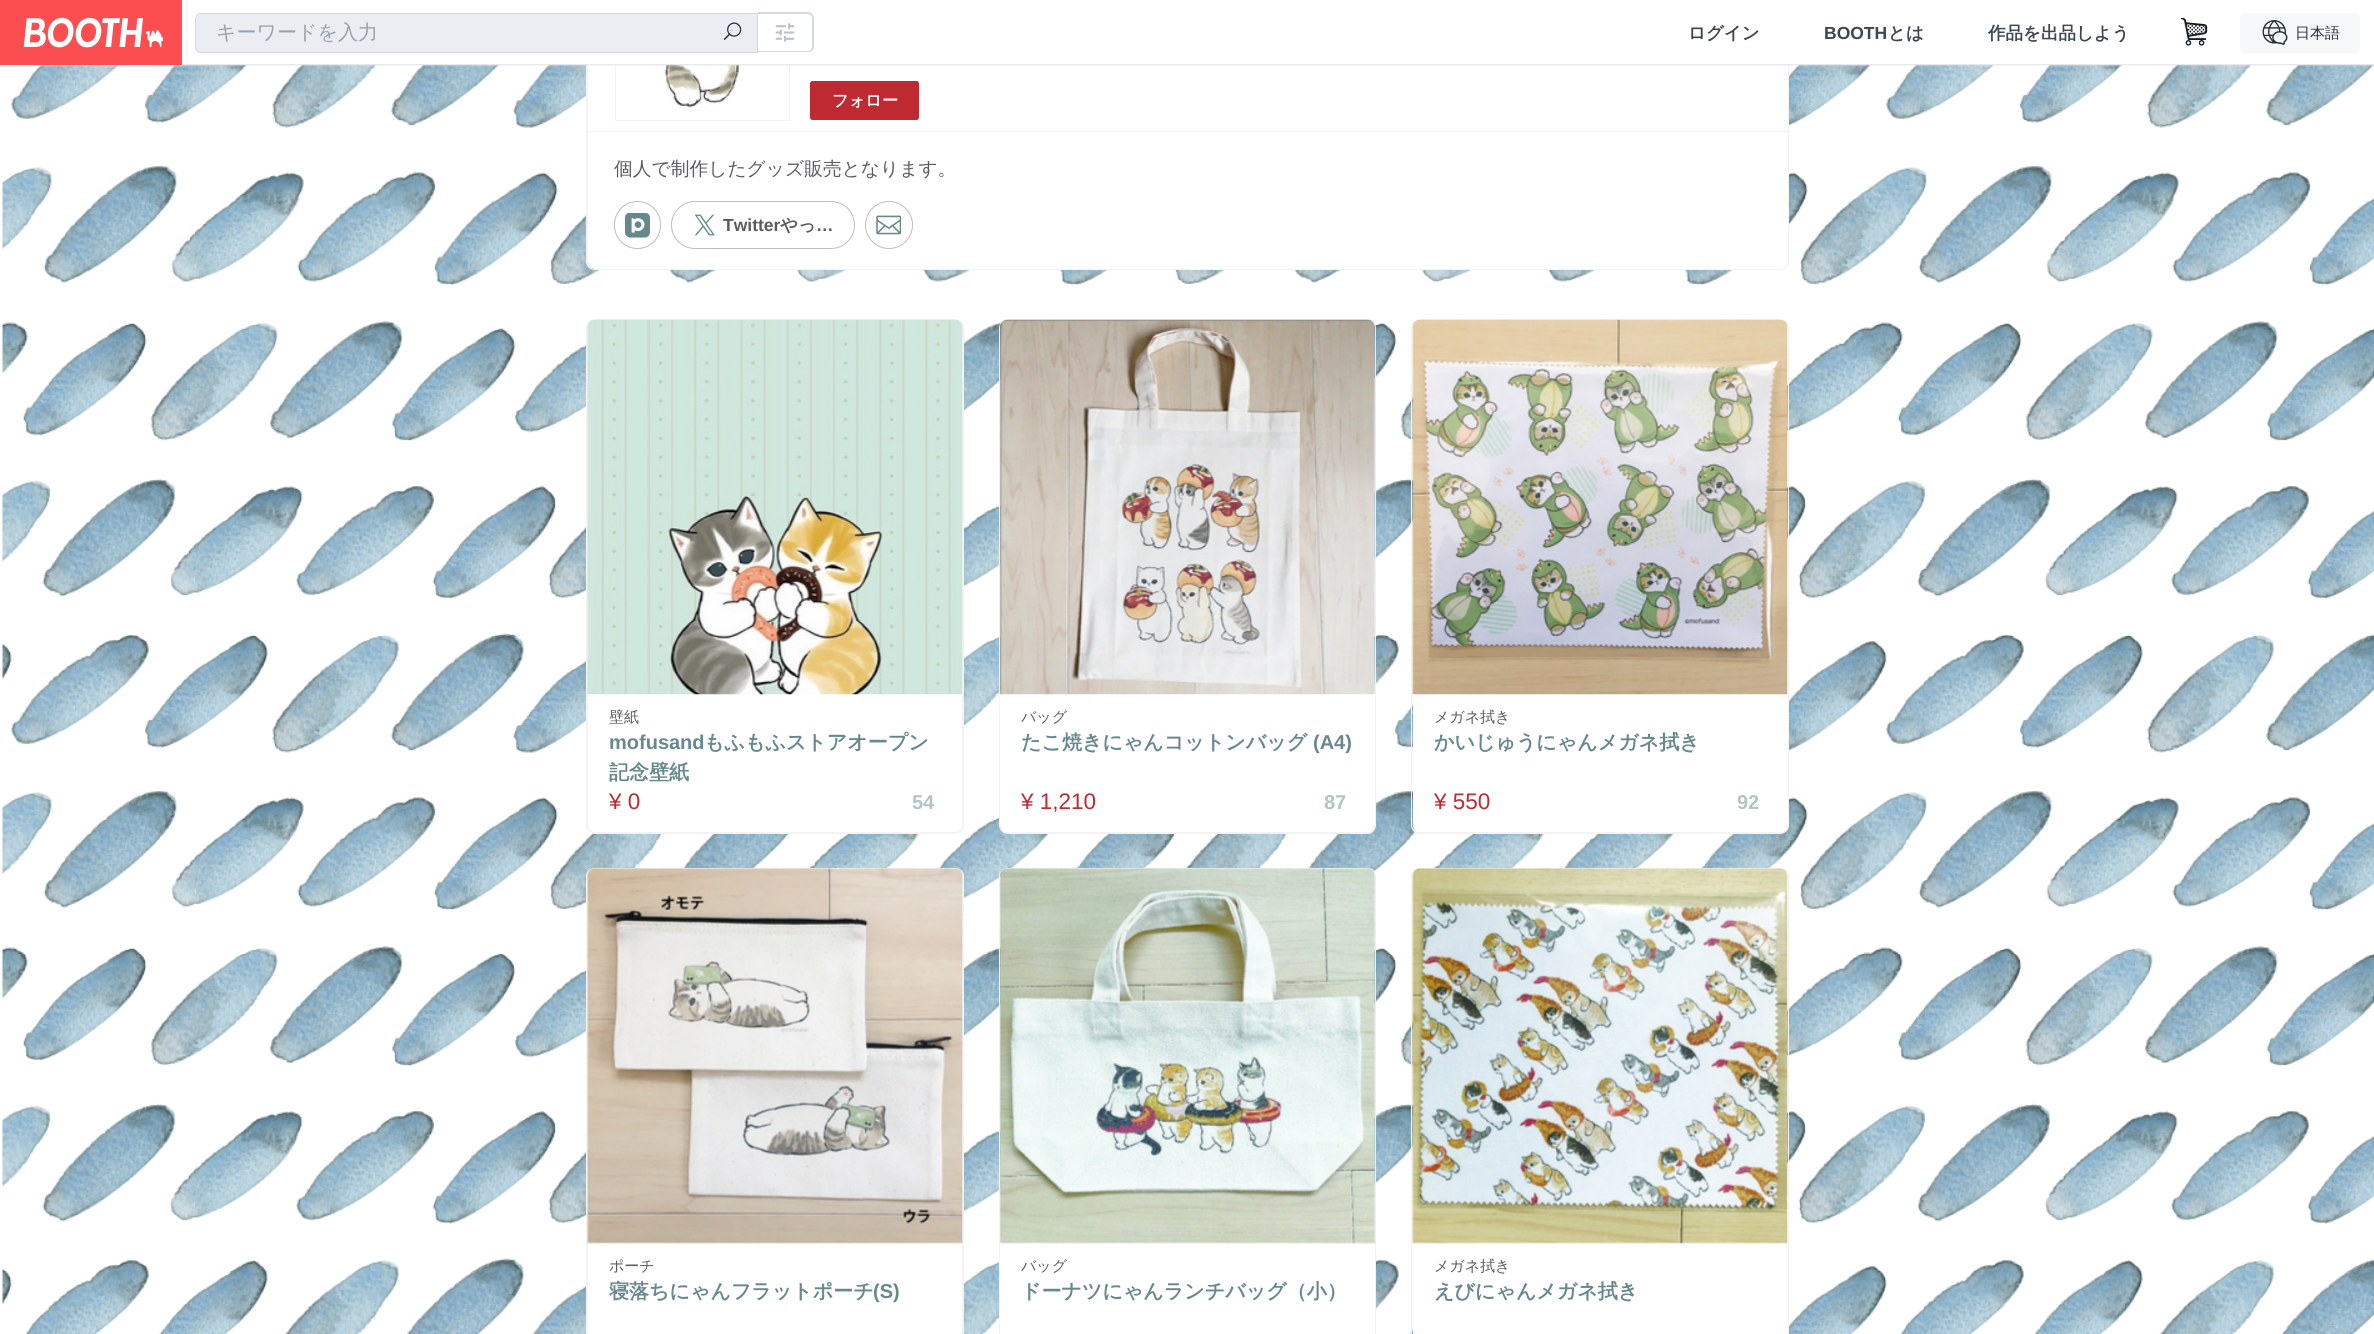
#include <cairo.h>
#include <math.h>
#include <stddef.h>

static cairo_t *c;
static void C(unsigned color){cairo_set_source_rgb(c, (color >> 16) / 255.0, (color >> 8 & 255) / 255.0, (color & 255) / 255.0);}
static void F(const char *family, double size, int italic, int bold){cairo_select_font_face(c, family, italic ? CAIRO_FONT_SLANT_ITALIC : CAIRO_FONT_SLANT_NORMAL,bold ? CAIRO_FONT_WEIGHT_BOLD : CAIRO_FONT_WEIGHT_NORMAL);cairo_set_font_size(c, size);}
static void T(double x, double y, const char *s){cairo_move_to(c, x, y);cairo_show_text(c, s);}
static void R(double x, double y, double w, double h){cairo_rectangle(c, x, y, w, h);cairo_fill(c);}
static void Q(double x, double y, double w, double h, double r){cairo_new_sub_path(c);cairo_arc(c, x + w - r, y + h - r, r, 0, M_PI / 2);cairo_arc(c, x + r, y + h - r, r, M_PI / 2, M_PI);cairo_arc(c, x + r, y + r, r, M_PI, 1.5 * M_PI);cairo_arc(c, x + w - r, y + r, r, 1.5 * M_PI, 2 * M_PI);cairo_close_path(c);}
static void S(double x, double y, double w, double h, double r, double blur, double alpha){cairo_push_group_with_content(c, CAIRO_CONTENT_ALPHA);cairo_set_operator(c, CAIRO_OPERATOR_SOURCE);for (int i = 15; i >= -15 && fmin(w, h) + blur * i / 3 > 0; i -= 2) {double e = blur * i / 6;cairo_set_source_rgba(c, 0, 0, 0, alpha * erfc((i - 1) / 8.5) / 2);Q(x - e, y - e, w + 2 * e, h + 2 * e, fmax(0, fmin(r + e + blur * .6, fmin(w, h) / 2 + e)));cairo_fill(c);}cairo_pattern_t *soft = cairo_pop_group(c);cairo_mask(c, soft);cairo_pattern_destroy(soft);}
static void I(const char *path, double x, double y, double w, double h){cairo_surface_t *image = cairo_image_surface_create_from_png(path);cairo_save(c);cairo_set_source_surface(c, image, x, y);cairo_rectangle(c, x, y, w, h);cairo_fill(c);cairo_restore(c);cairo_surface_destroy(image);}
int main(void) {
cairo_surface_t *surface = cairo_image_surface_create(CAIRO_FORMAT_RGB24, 2374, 1334);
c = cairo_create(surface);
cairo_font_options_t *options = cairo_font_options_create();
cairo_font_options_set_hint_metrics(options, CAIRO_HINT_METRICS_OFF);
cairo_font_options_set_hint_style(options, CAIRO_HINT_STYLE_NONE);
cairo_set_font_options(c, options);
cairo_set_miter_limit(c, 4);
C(0xffffff);
cairo_paint(c);
I("1.png",0,65,2374,1269);
C(0xffffff);
cairo_new_path(c);
cairo_move_to(c,588,-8);
cairo_line_to(c,1788,-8);
cairo_line_to(c,1788,261);
cairo_curve_to(c,1788,265.5,1784.5,269,1780,269);
cairo_line_to(c,596,269);
cairo_curve_to(c,591.5,269,588,265.5,588,261);
cairo_close_path(c);
cairo_fill(c);
C(0xf3f3f3);
cairo_set_fill_rule(c,CAIRO_FILL_RULE_EVEN_ODD);
cairo_new_path(c);
cairo_move_to(c,586,-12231);
cairo_line_to(c,1789,-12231);
cairo_line_to(c,1789,261);
cairo_curve_to(c,1789,266,1785,270,1780,270);
cairo_line_to(c,595,270);
cairo_curve_to(c,590,270,586,266,586,261);
cairo_close_path(c);
cairo_move_to(c,588,-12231);
cairo_line_to(c,1788,-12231);
cairo_line_to(c,1788,261);
cairo_curve_to(c,1788,265,1784,269,1780,269);
cairo_line_to(c,595,269);
cairo_curve_to(c,591,269,588,265,588,261);
cairo_close_path(c);
cairo_fill(c);
cairo_rectangle(c,615.5,-.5,174,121);
cairo_set_line_width(c,1);
cairo_stroke(c);
I("7.png",663,65,79,48);
C(0xe6e8eb);
S(0,0,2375,65,0,1,1);
C(0xffffff);
R(182,0,2192,64);
C(0xe6e8eb);
R(182,64,2192,1);
I("2.png",0,0,182,65);
C(0xebedf2);
cairo_new_path(c);
cairo_move_to(c,201,13.5);
cairo_line_to(c,757.5,13.5);
cairo_line_to(c,757.5,52.5);
cairo_line_to(c,201,52.5);
cairo_curve_to(c,198,52.5,195.5,50,195.5,47);
cairo_line_to(c,195.5,19);
cairo_curve_to(c,195.5,16,198,13.5,201,13.5);
cairo_close_path(c);
cairo_fill_preserve(c);
C(0xd5d9de);
cairo_stroke(c);
F("WenQuanYi Zen Hei Medium",20,0,0);
C(0x96a2b0);
T(216,39,"キーワードを入力");
I("3.png",723,22,19,18);
C(0xd5d9de);
cairo_new_path(c);
cairo_move_to(c,758,12);
cairo_line_to(c,808,12);
cairo_curve_to(c,811,12,814,15,814,19);
cairo_line_to(c,814,46);
cairo_curve_to(c,814,50,811,52,808,52);
cairo_line_to(c,758,52);
cairo_close_path(c);
cairo_move_to(c,758,14);
cairo_line_to(c,808,14);
cairo_curve_to(c,810,14,812,16,812,19);
cairo_line_to(c,812,46);
cairo_curve_to(c,812,49,810,51,808,51);
cairo_line_to(c,758,51);
cairo_close_path(c);
cairo_fill(c);
I("4.png",775,23,20,19);
F("WenQuanYi Zen Hei",17.5,0,1);
C(0x3d4651);
T(1688,39,"ログイン");
F("Liberation Sans",17.5,0,1);
T(1824,39,"BOOTH");
F("WenQuanYi Zen Hei",17.5,0,1);
T(1888,39,"とは");
T(1988,39,"作品を出品しよう");
I("5.png",2181,18,27,28);
C(0xf7f8fa);
Q(2240,13,120,40,5);
cairo_fill(c);
I("6.png",2262,20,26,25);
F("WenQuanYi Zen Hei Medium",15,0,0);
C(0x252f3d);
T(2295,38,"日本語");
C(0xbf2932);
Q(810,81,109,39,2.5);
cairo_fill(c);
F("WenQuanYi Zen Hei",16.25,0,1);
C(0xffffff);
T(832,106,"フォロー");
C(0xf3f3f3);
R(586,131,1203,1);
F("WenQuanYi Zen Hei Medium",18.75,0,0);
C(0x5a5a60);
T(614,175,"個人で制作したグッズ販売となります。");
Q(614.5,201.5,46,47,23);
C(0xbdbdbf);
cairo_stroke(c);
I("8.png",625,213,25,25);
Q(671.5,201.5,183,47,23.5);
cairo_stroke(c);
I("9.png",694,214,21,22);
F("Liberation Sans",17.5,0,1);
C(0x5a5a60);
T(723,231,"Twitter");
F("WenQuanYi Zen Hei",17.5,0,1);
T(780,231,"やっ");
F("Liberation Sans",17.5,0,1);
T(816,231,"…");
cairo_new_path(c);
cairo_arc(c,889,225,23.5,0,2 * M_PI);
C(0xbdbdbf);
cairo_stroke(c);
I("10.png",876,215,25,20);
C(0xffffff);
cairo_new_path(c);
cairo_move_to(c,588,694);
cairo_line_to(c,963,694);
cairo_line_to(c,963,825);
cairo_curve_to(c,963,829.5,959.5,833,955,833);
cairo_line_to(c,596,833);
cairo_curve_to(c,591.5,833,588,829.5,588,825);
cairo_close_path(c);
cairo_fill(c);
C(0xf3f3f3);
cairo_new_path(c);
cairo_move_to(c,586,694);
cairo_line_to(c,964,694);
cairo_line_to(c,964,825);
cairo_curve_to(c,964,830,960,834,955,834);
cairo_line_to(c,595,834);
cairo_curve_to(c,590,834,586,830,586,825);
cairo_close_path(c);
cairo_move_to(c,588,694);
cairo_line_to(c,962,694);
cairo_line_to(c,962,825);
cairo_curve_to(c,962,829,959,832,955,832);
cairo_line_to(c,595,832);
cairo_curve_to(c,591,832,588,829,588,825);
cairo_close_path(c);
cairo_fill(c);
cairo_new_path(c);
cairo_move_to(c,595,319);
cairo_line_to(c,955,319);
cairo_curve_to(c,960,319,964,323,964,328);
cairo_line_to(c,964,695);
cairo_line_to(c,586,695);
cairo_line_to(c,586,328);
cairo_curve_to(c,586,323,590,319,595,319);
cairo_close_path(c);
cairo_move_to(c,595,320);
cairo_line_to(c,955,320);
cairo_curve_to(c,959,320,962,323,962,328);
cairo_line_to(c,962,695);
cairo_line_to(c,588,695);
cairo_line_to(c,588,328);
cairo_curve_to(c,588,323,591,320,595,320);
cairo_close_path(c);
cairo_fill(c);
I("11.png",587,319,376,376);
F("WenQuanYi Zen Hei Medium",15,0,0);
C(0x5a5a60);
T(609,722,"壁紙");
F("Liberation Sans",20,0,1);
C(0x67898e);
T(609,749,"mofusand");
F("WenQuanYi Zen Hei",20,0,1);
T(704,749,"もふもふストアオープン");
T(609,779,"記念壁紙");
F("Liberation Sans",22.5,0,0);
C(0xbf2932);
T(609,809,"¥ 0");
F("Liberation Sans",20,0,1);
C(0xb3c4c7);
T(912,809,"54");
C(0xffffff);
cairo_new_path(c);
cairo_move_to(c,1000,694);
cairo_line_to(c,1375,694);
cairo_line_to(c,1375,825);
cairo_curve_to(c,1375,829.5,1371.5,833,1367,833);
cairo_line_to(c,1008,833);
cairo_curve_to(c,1003.5,833,1000,829.5,1000,825);
cairo_close_path(c);
cairo_fill(c);
C(0xf3f3f3);
cairo_new_path(c);
cairo_move_to(c,999,694);
cairo_line_to(c,1376,694);
cairo_line_to(c,1376,825);
cairo_curve_to(c,1376,830,1372,834,1368,834);
cairo_line_to(c,1008,834);
cairo_curve_to(c,1003,834,999,830,999,825);
cairo_close_path(c);
cairo_move_to(c,1000,694);
cairo_line_to(c,1375,694);
cairo_line_to(c,1375,825);
cairo_curve_to(c,1375,829,1372,832,1368,832);
cairo_line_to(c,1008,832);
cairo_curve_to(c,1003,832,1000,829,1000,825);
cairo_close_path(c);
cairo_fill(c);
cairo_new_path(c);
cairo_move_to(c,1008,319);
cairo_line_to(c,1368,319);
cairo_curve_to(c,1372,319,1376,323,1376,328);
cairo_line_to(c,1376,695);
cairo_line_to(c,999,695);
cairo_line_to(c,999,328);
cairo_curve_to(c,999,323,1003,319,1008,319);
cairo_close_path(c);
cairo_move_to(c,1008,320);
cairo_line_to(c,1368,320);
cairo_curve_to(c,1372,320,1375,323,1375,328);
cairo_line_to(c,1375,695);
cairo_line_to(c,1000,695);
cairo_line_to(c,1000,328);
cairo_curve_to(c,1000,323,1003,320,1008,320);
cairo_close_path(c);
cairo_fill(c);
I("12.png",999,319,377,376);
F("WenQuanYi Zen Hei Medium",15,0,0);
C(0x5a5a60);
T(1021,722,"バッグ");
F("WenQuanYi Zen Hei",20,0,1);
C(0x67898e);
T(1021,749,"たこ焼きにゃんコットンバッグ");
F("Liberation Sans",20,0,1);
T(1313,749,"(A4)");
F("Liberation Sans",22.5,0,0);
C(0xbf2932);
T(1021,809,"¥ 1,210");
F("Liberation Sans",20,0,1);
C(0xb3c4c7);
T(1324,809,"87");
C(0xffffff);
cairo_new_path(c);
cairo_move_to(c,1413,694);
cairo_line_to(c,1788,694);
cairo_line_to(c,1788,825);
cairo_curve_to(c,1788,829.5,1784.5,833,1780,833);
cairo_line_to(c,1421,833);
cairo_curve_to(c,1416.5,833,1413,829.5,1413,825);
cairo_close_path(c);
cairo_fill(c);
C(0xf3f3f3);
cairo_new_path(c);
cairo_move_to(c,1411,694);
cairo_line_to(c,1789,694);
cairo_line_to(c,1789,825);
cairo_curve_to(c,1789,830,1785,834,1780,834);
cairo_line_to(c,1420,834);
cairo_curve_to(c,1415,834,1411,830,1411,825);
cairo_close_path(c);
cairo_move_to(c,1412,694);
cairo_line_to(c,1788,694);
cairo_line_to(c,1788,825);
cairo_curve_to(c,1788,829,1784,832,1780,832);
cairo_line_to(c,1420,832);
cairo_curve_to(c,1416,832,1412,829,1412,825);
cairo_close_path(c);
cairo_fill(c);
cairo_new_path(c);
cairo_move_to(c,1420,319);
cairo_line_to(c,1780,319);
cairo_curve_to(c,1785,319,1789,323,1789,328);
cairo_line_to(c,1789,695);
cairo_line_to(c,1411,695);
cairo_line_to(c,1411,328);
cairo_curve_to(c,1411,323,1415,319,1420,319);
cairo_close_path(c);
cairo_move_to(c,1420,320);
cairo_line_to(c,1780,320);
cairo_curve_to(c,1784,320,1788,323,1788,328);
cairo_line_to(c,1788,695);
cairo_line_to(c,1412,695);
cairo_line_to(c,1412,328);
cairo_curve_to(c,1412,323,1416,320,1420,320);
cairo_close_path(c);
cairo_fill(c);
I("13.png",1412,319,376,376);
F("WenQuanYi Zen Hei Medium",15,0,0);
C(0x5a5a60);
T(1434,722,"メガネ拭き");
F("WenQuanYi Zen Hei",20,0,1);
C(0x67898e);
T(1434,749,"かいじゅうにゃんメガネ拭き");
F("Liberation Sans",22.5,0,0);
C(0xbf2932);
T(1434,809,"¥ 550");
F("Liberation Sans",20,0,1);
C(0xb3c4c7);
T(1737,809,"92");
C(0xffffff);
R(588,1259,374,75);
C(0xf3f3f3);
cairo_new_path(c);
cairo_move_to(c,586,1242);
cairo_line_to(c,964,1242);
cairo_line_to(c,964,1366);
cairo_curve_to(c,964,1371,960,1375,955,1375);
cairo_line_to(c,595,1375);
cairo_curve_to(c,590,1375,586,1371,586,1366);
cairo_close_path(c);
cairo_move_to(c,588,1242);
cairo_line_to(c,962,1242);
cairo_line_to(c,962,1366);
cairo_curve_to(c,962,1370,959,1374,955,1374);
cairo_line_to(c,595,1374);
cairo_curve_to(c,591,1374,588,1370,588,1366);
cairo_close_path(c);
cairo_fill(c);
cairo_new_path(c);
cairo_move_to(c,595,868);
cairo_line_to(c,955,868);
cairo_curve_to(c,960,868,964,871,964,876);
cairo_line_to(c,964,1244);
cairo_line_to(c,586,1244);
cairo_line_to(c,586,876);
cairo_curve_to(c,586,871,590,868,595,868);
cairo_close_path(c);
cairo_move_to(c,595,869);
cairo_line_to(c,955,869);
cairo_curve_to(c,959,869,962,872,962,876);
cairo_line_to(c,962,1244);
cairo_line_to(c,588,1244);
cairo_line_to(c,588,876);
cairo_curve_to(c,588,872,591,869,595,869);
cairo_close_path(c);
cairo_fill(c);
I("14.png",587,867,376,377);
F("WenQuanYi Zen Hei Medium",15,0,0);
C(0x5a5a60);
T(609,1271,"ポーチ");
F("WenQuanYi Zen Hei",20,0,1);
C(0x67898e);
T(609,1298,"寝落ちにゃんフラットポーチ");
F("Liberation Sans",20,0,1);
T(873,1298,"(S)");
C(0xffffff);
R(1000,1258,375,76);
C(0xf3f3f3);
cairo_new_path(c);
cairo_move_to(c,999,1242);
cairo_line_to(c,1376,1242);
cairo_line_to(c,1376,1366);
cairo_curve_to(c,1376,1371,1372,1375,1368,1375);
cairo_line_to(c,1008,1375);
cairo_curve_to(c,1003,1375,999,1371,999,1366);
cairo_close_path(c);
cairo_move_to(c,1000,1242);
cairo_line_to(c,1375,1242);
cairo_line_to(c,1375,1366);
cairo_curve_to(c,1375,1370,1372,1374,1368,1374);
cairo_line_to(c,1008,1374);
cairo_curve_to(c,1003,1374,1000,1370,1000,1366);
cairo_close_path(c);
cairo_fill(c);
cairo_new_path(c);
cairo_move_to(c,1008,868);
cairo_line_to(c,1368,868);
cairo_curve_to(c,1372,868,1376,871,1376,876);
cairo_line_to(c,1376,1244);
cairo_line_to(c,999,1244);
cairo_line_to(c,999,876);
cairo_curve_to(c,999,871,1003,868,1008,868);
cairo_close_path(c);
cairo_move_to(c,1008,869);
cairo_line_to(c,1368,869);
cairo_curve_to(c,1372,869,1375,872,1375,876);
cairo_line_to(c,1375,1244);
cairo_line_to(c,1000,1244);
cairo_line_to(c,1000,876);
cairo_curve_to(c,1000,872,1003,869,1008,869);
cairo_close_path(c);
cairo_fill(c);
I("15.png",999,867,377,377);
F("WenQuanYi Zen Hei Medium",15,0,0);
C(0x5a5a60);
T(1021,1271,"バッグ");
F("WenQuanYi Zen Hei",20,0,1);
C(0x67898e);
T(1021,1298,"ドーナツにゃんランチバッグ（小）");
C(0xffffff);
R(1413,1258,375,76);
C(0xf3f3f3);
cairo_new_path(c);
cairo_move_to(c,1411,1242);
cairo_line_to(c,1789,1242);
cairo_line_to(c,1789,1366);
cairo_curve_to(c,1789,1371,1785,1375,1780,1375);
cairo_line_to(c,1420,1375);
cairo_curve_to(c,1415,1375,1411,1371,1411,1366);
cairo_close_path(c);
cairo_move_to(c,1412,1242);
cairo_line_to(c,1788,1242);
cairo_line_to(c,1788,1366);
cairo_curve_to(c,1788,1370,1784,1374,1780,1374);
cairo_line_to(c,1420,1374);
cairo_curve_to(c,1416,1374,1412,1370,1412,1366);
cairo_close_path(c);
cairo_fill(c);
cairo_new_path(c);
cairo_move_to(c,1420,868);
cairo_line_to(c,1780,868);
cairo_curve_to(c,1785,868,1789,871,1789,876);
cairo_line_to(c,1789,1244);
cairo_line_to(c,1411,1244);
cairo_line_to(c,1411,876);
cairo_curve_to(c,1411,871,1415,868,1420,868);
cairo_close_path(c);
cairo_move_to(c,1420,869);
cairo_line_to(c,1780,869);
cairo_curve_to(c,1784,869,1788,872,1788,876);
cairo_line_to(c,1788,1244);
cairo_line_to(c,1412,1244);
cairo_line_to(c,1412,876);
cairo_curve_to(c,1412,872,1416,869,1420,869);
cairo_close_path(c);
cairo_fill(c);
I("16.png",1412,867,376,377);
F("WenQuanYi Zen Hei Medium",15,0,0);
C(0x5a5a60);
T(1434,1271,"メガネ拭き");
F("WenQuanYi Zen Hei",20,0,1);
C(0x67898e);
T(1434,1298,"えびにゃんメガネ拭き");
cairo_surface_write_to_png(surface, "o.png");
cairo_font_options_destroy(options);
cairo_destroy(c);
cairo_surface_destroy(surface);
return 0;
}
